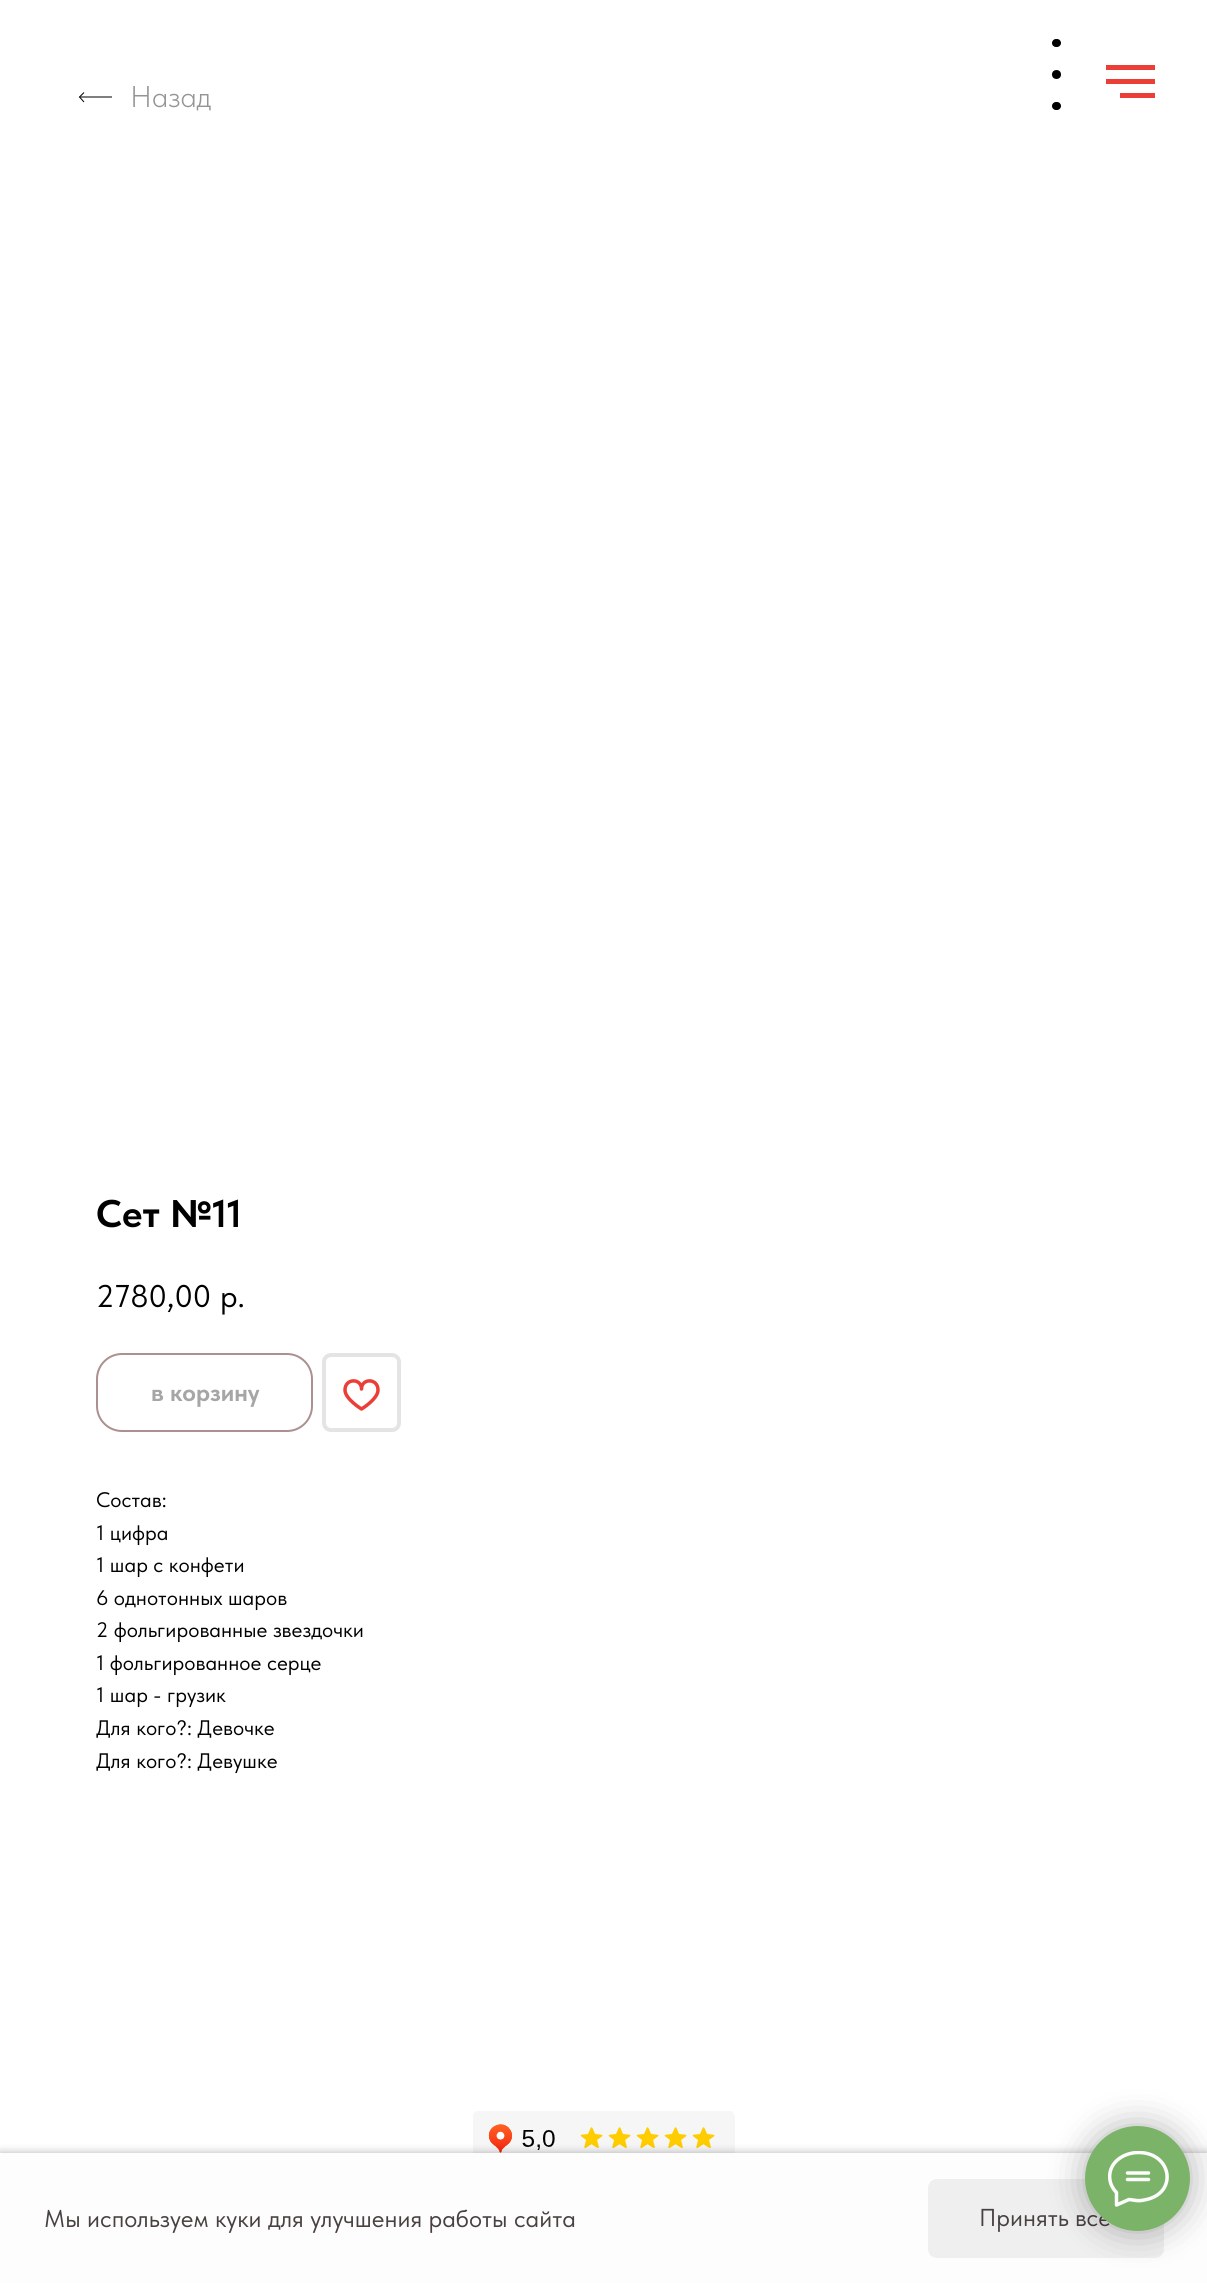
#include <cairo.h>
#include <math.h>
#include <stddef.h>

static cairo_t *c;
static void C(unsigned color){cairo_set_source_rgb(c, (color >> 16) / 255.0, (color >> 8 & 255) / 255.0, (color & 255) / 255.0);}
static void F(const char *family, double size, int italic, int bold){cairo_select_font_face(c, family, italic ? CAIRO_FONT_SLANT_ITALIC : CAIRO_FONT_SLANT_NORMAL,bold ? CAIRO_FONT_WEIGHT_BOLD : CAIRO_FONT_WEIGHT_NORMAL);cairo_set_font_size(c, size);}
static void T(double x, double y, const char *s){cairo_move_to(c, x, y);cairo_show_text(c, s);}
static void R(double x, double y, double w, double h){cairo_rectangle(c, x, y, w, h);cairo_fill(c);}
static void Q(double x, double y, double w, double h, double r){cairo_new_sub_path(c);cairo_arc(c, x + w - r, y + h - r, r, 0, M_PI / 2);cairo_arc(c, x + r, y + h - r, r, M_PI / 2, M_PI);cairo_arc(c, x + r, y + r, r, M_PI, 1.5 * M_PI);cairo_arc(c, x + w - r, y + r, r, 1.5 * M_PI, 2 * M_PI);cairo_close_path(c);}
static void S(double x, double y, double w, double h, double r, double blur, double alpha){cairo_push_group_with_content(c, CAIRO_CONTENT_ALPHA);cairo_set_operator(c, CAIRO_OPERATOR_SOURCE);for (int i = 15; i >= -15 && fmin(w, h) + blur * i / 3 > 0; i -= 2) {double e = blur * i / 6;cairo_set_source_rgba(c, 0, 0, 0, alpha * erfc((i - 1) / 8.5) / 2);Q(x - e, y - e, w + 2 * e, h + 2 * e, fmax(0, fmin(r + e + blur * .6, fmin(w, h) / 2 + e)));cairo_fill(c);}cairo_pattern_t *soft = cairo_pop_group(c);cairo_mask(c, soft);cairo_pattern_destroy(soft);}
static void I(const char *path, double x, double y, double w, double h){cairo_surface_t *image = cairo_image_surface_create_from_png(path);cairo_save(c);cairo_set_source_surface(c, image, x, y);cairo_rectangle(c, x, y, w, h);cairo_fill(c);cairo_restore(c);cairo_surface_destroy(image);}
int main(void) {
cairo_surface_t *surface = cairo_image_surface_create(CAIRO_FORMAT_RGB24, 1207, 2283);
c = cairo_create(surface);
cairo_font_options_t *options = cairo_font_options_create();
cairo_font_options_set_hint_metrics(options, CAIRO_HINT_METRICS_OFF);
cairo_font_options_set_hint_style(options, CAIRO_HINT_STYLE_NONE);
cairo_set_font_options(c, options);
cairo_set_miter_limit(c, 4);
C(0xffffff);
cairo_paint(c);
cairo_new_path(c);
cairo_move_to(c,112,97);
cairo_line_to(c,79.5,97);
C(0x000000);
cairo_set_line_width(c,1);
cairo_stroke(c);
cairo_new_path(c);
cairo_move_to(c,84,92.5);
cairo_line_to(c,79.5,97);
cairo_line_to(c,84,102);
cairo_set_line_join(c,CAIRO_LINE_JOIN_BEVEL);
cairo_stroke(c);
F("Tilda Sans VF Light",30,0,0);
C(0x949494);
T(130,107,"Назад");
C(0x000000);
Q(1052,39,9,8,4);
cairo_fill(c);
cairo_arc(c,1056.5,74.5,4.5,0,2 * M_PI);
cairo_fill(c);
Q(1052,102,9,8,4);
cairo_fill(c);
C(0xeb3e37);
R(1106,65,49,5);
R(1106,79,49,5);
R(1120,93,35,5);
I("1.png",473,2111,262,42);
C(0x000000);
S(0,2153,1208,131,0,4.5,.3);
C(0xfdfdfd);
R(0,2153,1207,130);
F("Tilda Sans VF",24.5,0,0);
C(0x494040);
T(44,2227,"Мы используем куки для улучшения работы сайта");
C(0xefefef);
Q(928,2179,236,79,9);
cairo_fill(c);
C(0x494040);
T(979,2226,"Принять все");
C(0x000000);
S(1085,2126,105,105,52.5,17.5,.3);
C(0x7bb368);
cairo_arc(c,1137.5,2178.5,52.5,0,2 * M_PI);
cairo_fill(c);
cairo_save(c);
cairo_rectangle(c,1108,2151,61,56);
cairo_clip(c);
cairo_new_path(c);
cairo_move_to(c,1127.5,2173);
cairo_line_to(c,1148.5,2173);
cairo_move_to(c,1127.5,2179.5);
cairo_line_to(c,1148.5,2179.5);
cairo_move_to(c,1116,2192);
cairo_curve_to(c,1107,2182.5,1107.5,2168,1118,2159.5);
cairo_curve_to(c,1123.5,2155,1131,2152.5,1138.5,2152.5);
cairo_curve_to(c,1172.5,2152.5,1178.5,2194.5,1144,2200);
cairo_curve_to(c,1138,2201.5,1134.5,2200,1129,2199.5);
cairo_line_to(c,1116.5,2205);
cairo_line_to(c,1116.5,2192.5);
cairo_close_path(c);
C(0xfdfdfd);
cairo_set_line_width(c,3.5);
cairo_set_line_cap(c,CAIRO_LINE_CAP_ROUND);
cairo_set_line_join(c,CAIRO_LINE_JOIN_ROUND);
cairo_stroke(c);
cairo_restore(c);
F("Tilda Sans VF",38.5,0,1);
C(0x000000);
T(96,1227,"Сет №11");
F("Tilda Sans VF",31.5,0,0);
T(96,1307,"2780,00");
T(220,1307,"р.");
Q(97,1354,215,77,25);
C(0xab908f);
cairo_set_line_width(c,2);
cairo_set_line_join(c,CAIRO_LINE_JOIN_MITER);
cairo_stroke(c);
F("Tilda Sans VF",24.5,0,1);
C(0xa6a6a6);
T(151,1401,"в корзину");
Q(324,1355,75,75,7);
C(0xe4e4e4);
cairo_set_line_width(c,4);
cairo_stroke(c);
cairo_new_path(c);
cairo_move_to(c,378,1390);
cairo_curve_to(c,378,1399,361.5,1409,361.5,1409);
cairo_curve_to(c,361.5,1409,345,1399,345,1390);
cairo_curve_to(c,345,1378,361.5,1378,361.5,1389);
cairo_curve_to(c,361.5,1378,378,1378,378,1390);
cairo_close_path(c);
C(0xeb3e37);
cairo_set_line_width(c,3.5);
cairo_set_line_join(c,CAIRO_LINE_JOIN_ROUND);
cairo_stroke(c);
F("Tilda Sans VF",21,0,0);
C(0x000000);
T(96,1507,"Состав:");
T(96,1540,"1 цифра");
T(96,1572,"1 шар с конфети");
T(96,1605,"6 однотонных шаров");
T(96,1637,"2 фольгированные звездочки");
T(96,1670,"1 фольгированное серце");
T(96,1702,"1 шар - грузик");
T(96,1735,"Для кого?: Девочке");
T(96,1768,"Для кого?: Девушке");
cairo_surface_write_to_png(surface, "o.png");
cairo_font_options_destroy(options);
cairo_destroy(c);
cairo_surface_destroy(surface);
return 0;
}
